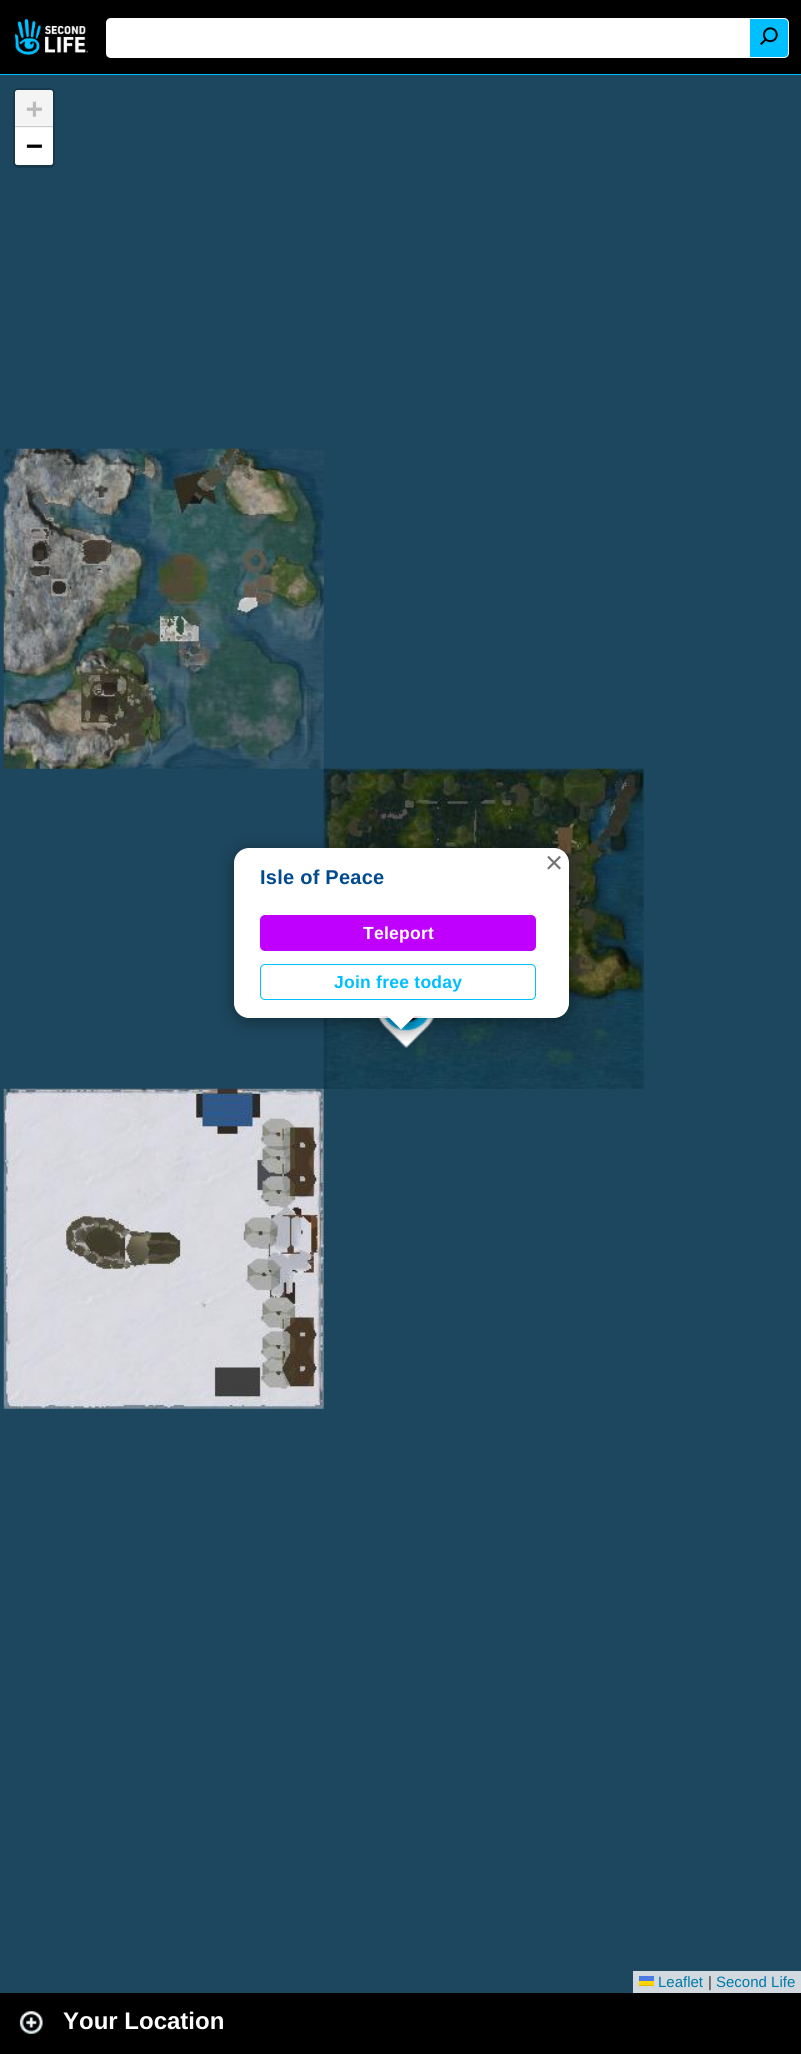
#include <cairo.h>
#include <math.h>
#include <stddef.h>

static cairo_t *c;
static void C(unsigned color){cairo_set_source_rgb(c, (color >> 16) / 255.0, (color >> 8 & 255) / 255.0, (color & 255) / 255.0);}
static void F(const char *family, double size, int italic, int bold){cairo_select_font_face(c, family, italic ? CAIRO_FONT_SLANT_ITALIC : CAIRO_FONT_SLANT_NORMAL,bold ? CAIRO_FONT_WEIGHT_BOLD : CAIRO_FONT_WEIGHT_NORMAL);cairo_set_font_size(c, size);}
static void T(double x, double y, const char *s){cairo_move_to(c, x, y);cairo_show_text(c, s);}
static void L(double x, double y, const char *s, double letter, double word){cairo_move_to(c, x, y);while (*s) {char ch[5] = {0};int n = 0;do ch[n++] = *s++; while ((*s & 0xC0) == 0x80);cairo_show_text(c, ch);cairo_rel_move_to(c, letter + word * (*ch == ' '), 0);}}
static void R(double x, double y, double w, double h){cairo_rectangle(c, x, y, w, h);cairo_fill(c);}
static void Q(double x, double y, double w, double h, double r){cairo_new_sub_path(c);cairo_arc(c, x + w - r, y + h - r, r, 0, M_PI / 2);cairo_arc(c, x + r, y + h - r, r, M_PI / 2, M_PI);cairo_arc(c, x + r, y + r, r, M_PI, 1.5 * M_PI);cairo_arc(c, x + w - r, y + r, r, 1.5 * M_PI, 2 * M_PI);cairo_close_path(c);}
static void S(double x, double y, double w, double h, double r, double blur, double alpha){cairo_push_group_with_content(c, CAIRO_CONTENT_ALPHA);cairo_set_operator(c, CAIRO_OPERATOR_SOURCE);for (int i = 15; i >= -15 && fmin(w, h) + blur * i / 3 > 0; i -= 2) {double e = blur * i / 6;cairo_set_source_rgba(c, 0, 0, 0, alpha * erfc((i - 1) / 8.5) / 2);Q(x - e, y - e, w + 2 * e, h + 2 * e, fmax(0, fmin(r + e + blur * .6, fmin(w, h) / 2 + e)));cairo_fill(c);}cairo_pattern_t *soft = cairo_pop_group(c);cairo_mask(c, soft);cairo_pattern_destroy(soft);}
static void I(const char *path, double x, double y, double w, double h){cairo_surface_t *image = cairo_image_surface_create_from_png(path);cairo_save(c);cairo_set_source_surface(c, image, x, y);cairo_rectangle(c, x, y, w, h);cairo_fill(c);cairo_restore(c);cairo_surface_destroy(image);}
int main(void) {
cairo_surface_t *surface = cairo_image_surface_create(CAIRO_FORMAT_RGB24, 801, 2054);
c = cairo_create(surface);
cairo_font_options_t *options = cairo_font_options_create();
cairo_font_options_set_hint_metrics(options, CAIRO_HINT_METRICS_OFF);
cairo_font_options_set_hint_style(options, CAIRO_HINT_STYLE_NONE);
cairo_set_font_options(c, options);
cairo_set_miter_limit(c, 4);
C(0x000000);
cairo_paint(c);
C(0x00bfff);
R(0,74,801,1);
I("1.png",14,19,74,36);
C(0xffffff);
cairo_new_path(c);
cairo_move_to(c,111,18);
cairo_line_to(c,754,18);
cairo_line_to(c,754,58);
cairo_line_to(c,111,58);
cairo_curve_to(c,108,58,106,56,106,53);
cairo_line_to(c,106,23);
cairo_curve_to(c,106,20,108,18,111,18);
cairo_close_path(c);
cairo_fill(c);
C(0x00bfff);
cairo_new_path(c);
cairo_move_to(c,749.5,18.5);
cairo_line_to(c,784,18.5);
cairo_curve_to(c,786.5,18.5,788.5,20.5,788.5,23);
cairo_line_to(c,788.5,53);
cairo_curve_to(c,788.5,55.5,786.5,57.5,784,57.5);
cairo_line_to(c,749.5,57.5);
cairo_close_path(c);
cairo_fill_preserve(c);
C(0xffffff);
cairo_set_line_width(c,1);
cairo_stroke(c);
I("2.png",760,27,18,18);
C(0x1d475f);
R(0,75,801,1918);
Q(14.5,89.5,39,77,3.5);
C(0x17394c);
cairo_set_line_width(c,3);
cairo_stroke(c);
C(0xf4f4f4);
cairo_new_path(c);
cairo_move_to(c,17.5,90);
cairo_line_to(c,50.5,90);
cairo_curve_to(c,52,90,53,91,53,92.5);
cairo_line_to(c,53,128);
cairo_line_to(c,15,128);
cairo_line_to(c,15,92.5);
cairo_curve_to(c,15,91,16,90,17.5,90);
cairo_close_path(c);
cairo_fill(c);
C(0xcccccc);
R(15,126,38,1);
F("DejaVu Sans Mono",28,0,1);
C(0xbbbbbb);
T(26,118,"+");
C(0xffffff);
cairo_new_path(c);
cairo_move_to(c,15,128);
cairo_line_to(c,53,128);
cairo_line_to(c,53,162.5);
cairo_curve_to(c,53,164,52,165,50.5,165);
cairo_line_to(c,17.5,165);
cairo_curve_to(c,16,165,15,164,15,162.5);
cairo_close_path(c);
cairo_fill(c);
C(0x000000);
T(26,155,"−");
C(0xd2dadf);
R(633,1971,168,22);
F("Liberation Sans",15,0,0);
C(0x0078a8);
T(658,1987,"Leaflet");
C(0x4c7be1);
R(639,1976,15,5);
C(0xffd500);
R(639,1981,15,4);
C(0xe0bc00);
R(639,1985,15,1);
C(0x333333);
T(708,1987,"|");
C(0x0078a8);
T(716,1987,"Second Life");
I("4.png",323,768,321,321);
I("3.png",3,448,321,321);
I("5.png",3,1088,321,321);
I("6.png",378,1018,57,30);
C(0x000000);
S(234,851,335,170,15,9,.4);
C(0xffffff);
Q(234,848,335,170,15);
cairo_fill(c);
F("Liberation Sans",31,0,0);
C(0x757575);
T(545,873,"×");
F("Liberation Sans",20,0,1);
C(0x014a8e);
L(260,884,"Isle of Peace",.25,0);
C(0xbf00ff);
Q(260,915,276,36,5);
cairo_fill(c);
F("Liberation Sans",17.5,0,1);
C(0xffffff);
L(363,939,"Teleport",.25,0);
Q(260.5,964.5,275,35,4.5);
C(0x00bfff);
cairo_set_line_width(c,1);
cairo_stroke(c);
L(334,988,"Join free today",.25,0);
cairo_save(c);
cairo_rectangle(c,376,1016,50,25);
cairo_clip(c);
C(0x000000);
S(391,1008,22,21,0,9,.4);
cairo_restore(c);
cairo_save(c);
cairo_rectangle(c,376,1016,50,25);
cairo_clip(c);
C(0xffffff);
cairo_new_path(c);
cairo_move_to(c,401,999.5);
cairo_line_to(c,416.5,1014.5);
cairo_line_to(c,401,1029.5);
cairo_line_to(c,386,1014.5);
cairo_close_path(c);
cairo_fill(c);
cairo_restore(c);
I("7.png",19,2011,24,23);
F("Liberation Sans",24,0,1);
C(0xffffff);
T(63,2029,"Your Location");
cairo_surface_write_to_png(surface, "o.png");
cairo_font_options_destroy(options);
cairo_destroy(c);
cairo_surface_destroy(surface);
return 0;
}
